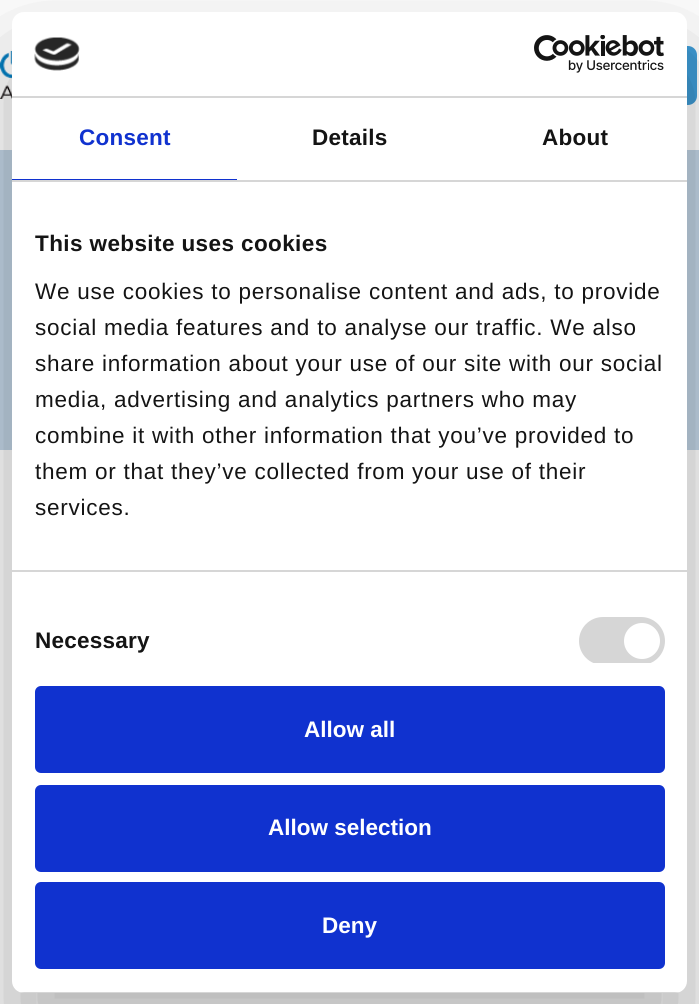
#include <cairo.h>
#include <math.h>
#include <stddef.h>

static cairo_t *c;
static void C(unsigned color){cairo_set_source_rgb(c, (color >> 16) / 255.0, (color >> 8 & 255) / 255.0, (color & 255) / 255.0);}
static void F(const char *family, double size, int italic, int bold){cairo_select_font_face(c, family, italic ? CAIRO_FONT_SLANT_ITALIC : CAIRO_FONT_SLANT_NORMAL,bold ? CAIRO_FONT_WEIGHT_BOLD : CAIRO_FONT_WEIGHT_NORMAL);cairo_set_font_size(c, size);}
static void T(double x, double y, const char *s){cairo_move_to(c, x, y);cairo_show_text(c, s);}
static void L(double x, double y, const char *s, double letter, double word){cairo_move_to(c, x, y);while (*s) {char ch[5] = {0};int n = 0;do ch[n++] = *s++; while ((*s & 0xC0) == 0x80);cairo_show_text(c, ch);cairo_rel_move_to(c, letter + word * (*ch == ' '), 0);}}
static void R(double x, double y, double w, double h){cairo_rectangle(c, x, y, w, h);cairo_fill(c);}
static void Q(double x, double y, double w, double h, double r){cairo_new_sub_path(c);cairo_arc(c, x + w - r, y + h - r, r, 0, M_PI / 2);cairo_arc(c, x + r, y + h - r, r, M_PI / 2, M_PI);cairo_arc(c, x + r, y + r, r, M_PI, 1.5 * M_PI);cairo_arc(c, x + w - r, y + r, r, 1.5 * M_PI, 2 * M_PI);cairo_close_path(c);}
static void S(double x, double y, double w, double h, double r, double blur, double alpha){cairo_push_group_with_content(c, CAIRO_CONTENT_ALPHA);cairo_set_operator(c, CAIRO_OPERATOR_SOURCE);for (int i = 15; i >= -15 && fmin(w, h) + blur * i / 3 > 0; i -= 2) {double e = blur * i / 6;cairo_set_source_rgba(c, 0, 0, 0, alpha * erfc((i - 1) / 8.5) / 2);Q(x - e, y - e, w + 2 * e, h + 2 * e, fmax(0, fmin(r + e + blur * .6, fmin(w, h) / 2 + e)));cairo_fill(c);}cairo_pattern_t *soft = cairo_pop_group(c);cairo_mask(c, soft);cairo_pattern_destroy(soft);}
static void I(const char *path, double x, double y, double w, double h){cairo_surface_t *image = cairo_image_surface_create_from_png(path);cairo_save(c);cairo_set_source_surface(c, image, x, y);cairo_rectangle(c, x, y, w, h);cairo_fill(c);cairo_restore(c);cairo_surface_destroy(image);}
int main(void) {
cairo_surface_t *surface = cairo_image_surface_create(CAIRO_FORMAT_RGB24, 699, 1004);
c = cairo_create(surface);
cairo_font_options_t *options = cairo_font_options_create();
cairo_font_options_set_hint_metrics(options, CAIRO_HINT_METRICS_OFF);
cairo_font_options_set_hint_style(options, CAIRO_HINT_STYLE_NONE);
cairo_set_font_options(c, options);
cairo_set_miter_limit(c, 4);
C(0xfafafa);
cairo_paint(c);
C(0xffffff);
R(0,0,699,150);
I("1.png",0,51,12,48);
C(0x3e9bd5);
Q(630,45,68,61,10);
cairo_fill_preserve(c);
C(0xffffff);
cairo_stroke(c);
C(0xc0d2e3);
R(0,150,699,300);
C(0xffffff);
R(36,993,627,11);
C(0x000000);
S(12,60,675,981,12,51,.3);
C(0xffffff);
Q(12,12,675,981,12);
cairo_fill(c);
C(0xd6d6d6);
R(12,96,675,2);
I("2.png",34,37,46,34);
I("3.png",534,35,130,38);
R(12,180,675,2);
C(0x1032cf);
R(12,179,225,1);
F("Liberation Sans",22.5,0,1);
L(79,145,"Consent",.25,0);
C(0x141414);
L(312,145,"Details",.25,0);
L(542,145,"About",.25,0);
C(0xd6d6d6);
R(12,570,675,2);
C(0x141414);
L(35,251,"This website uses cookies",.4,0);
F("Liberation Sans",22.5,0,0);
L(35,299,"We use cookies to personalise content and ads, to provide",.75,0);
L(35,335,"social media features and to analyse our traffic. We also",.75,0);
L(35,371,"share information about your use of our site with our social",.75,0);
L(35,407,"media, advertising and analytics partners who may",.75,0);
L(35,443,"combine it with other information that you’ve provided to",.75,0);
L(35,479,"them or that they’ve collected from your use of their",.75,0);
L(35,515,"services.",.75,0);
F("Liberation Sans",22.5,0,1);
L(35,648,"Necessary",.25,0);
cairo_save(c);
cairo_rectangle(c,12,182,675,481);
cairo_clip(c);
C(0xd6d6d6);
Q(579,617,86,48,24);
cairo_fill(c);
cairo_restore(c);
C(0xffffff);
cairo_arc(c,642,641,18,0,2 * M_PI);
cairo_fill(c);
cairo_save(c);
Q(12,12,675,981,12);
cairo_clip(c);
C(0xd6d6d6);
R(12,992,675,1);
cairo_restore(c);
C(0x1032cf);
Q(36.5,687.5,627,84,4.5);
cairo_fill_preserve(c);
cairo_set_line_width(c,3);
cairo_stroke(c);
C(0xffffff);
T(304,737,"Allow all");
C(0x1032cf);
Q(36.5,786.5,627,84,4.5);
cairo_fill_preserve(c);
cairo_stroke(c);
C(0xffffff);
T(268,835,"Allow selection");
C(0x1032cf);
Q(36.5,883.5,627,84,4.5);
cairo_fill_preserve(c);
cairo_stroke(c);
C(0xffffff);
T(322,933,"Deny");
cairo_surface_write_to_png(surface, "o.png");
cairo_font_options_destroy(options);
cairo_destroy(c);
cairo_surface_destroy(surface);
return 0;
}
